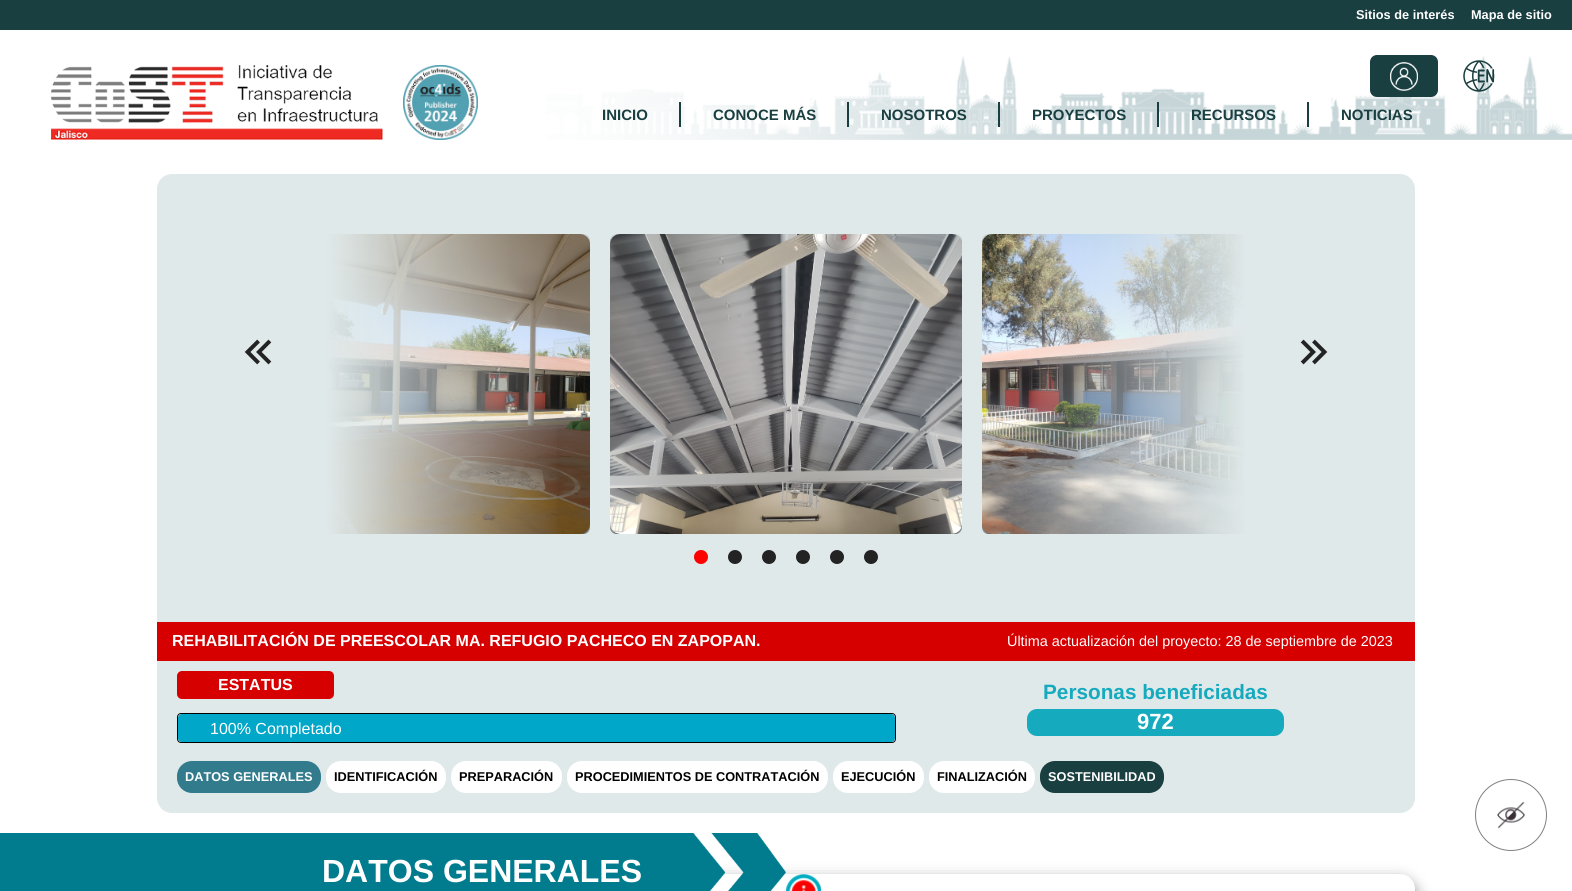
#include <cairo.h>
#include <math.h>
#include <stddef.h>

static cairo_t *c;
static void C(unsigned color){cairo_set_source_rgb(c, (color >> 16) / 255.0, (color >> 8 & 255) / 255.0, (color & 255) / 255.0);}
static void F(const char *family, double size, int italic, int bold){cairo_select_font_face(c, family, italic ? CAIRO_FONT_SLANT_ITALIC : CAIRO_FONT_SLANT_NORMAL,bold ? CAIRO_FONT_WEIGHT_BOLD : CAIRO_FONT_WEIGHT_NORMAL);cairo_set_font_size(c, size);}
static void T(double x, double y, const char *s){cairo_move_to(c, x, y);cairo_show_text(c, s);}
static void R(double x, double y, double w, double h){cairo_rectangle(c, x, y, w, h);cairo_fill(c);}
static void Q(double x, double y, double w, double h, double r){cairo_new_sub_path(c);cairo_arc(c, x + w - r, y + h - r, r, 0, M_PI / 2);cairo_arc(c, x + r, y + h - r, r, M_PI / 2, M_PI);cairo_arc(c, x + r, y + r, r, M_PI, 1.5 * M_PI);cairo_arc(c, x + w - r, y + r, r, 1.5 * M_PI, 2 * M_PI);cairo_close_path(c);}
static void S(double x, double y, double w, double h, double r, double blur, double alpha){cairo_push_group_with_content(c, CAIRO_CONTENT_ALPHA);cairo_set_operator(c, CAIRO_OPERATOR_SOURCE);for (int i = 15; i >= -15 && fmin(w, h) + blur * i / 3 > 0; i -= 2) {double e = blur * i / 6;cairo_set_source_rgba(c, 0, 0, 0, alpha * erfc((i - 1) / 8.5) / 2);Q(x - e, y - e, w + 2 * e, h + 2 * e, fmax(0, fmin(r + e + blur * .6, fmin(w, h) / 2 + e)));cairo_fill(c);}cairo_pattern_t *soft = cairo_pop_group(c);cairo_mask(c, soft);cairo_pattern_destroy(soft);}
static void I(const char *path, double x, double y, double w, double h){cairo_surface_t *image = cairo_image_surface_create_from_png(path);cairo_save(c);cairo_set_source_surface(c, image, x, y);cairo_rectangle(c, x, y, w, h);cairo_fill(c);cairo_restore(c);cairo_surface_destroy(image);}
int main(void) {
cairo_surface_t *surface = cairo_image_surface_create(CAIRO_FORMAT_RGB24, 1572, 891);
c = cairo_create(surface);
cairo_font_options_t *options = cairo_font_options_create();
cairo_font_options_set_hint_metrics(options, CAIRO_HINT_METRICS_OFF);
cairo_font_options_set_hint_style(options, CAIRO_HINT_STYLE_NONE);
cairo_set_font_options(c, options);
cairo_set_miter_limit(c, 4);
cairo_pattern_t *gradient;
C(0xffffff);
cairo_paint(c);
I("1.png",546,55,1026,85);
C(0x193f41);
R(0,0,1572,30);
F("Liberation Sans",12.75,0,1);
C(0xffffff);
T(1356,19,"Sitios de interés");
T(1471,19,"Mapa de sitio");
I("2.png",51,65,332,75);
I("3.png",403,65,75,75);
C(0x193f41);
Q(1370,55,68,42,7);
cairo_fill(c);
I("4.png",1390,62,28,29);
I("5.png",1463,60,32,32);
R(679,102,2,25);
F("Liberation Sans",15,0,1);
T(602,120,"INICIO");
R(847,102,2,25);
T(713,120,"CONOCE MÁS");
R(998,102,2,25);
T(881,120,"NOSOTROS");
R(1157,102,2,25);
T(1032,120,"PROYECTOS");
R(1307,102,2,25);
T(1191,120,"RECURSOS");
T(1341,120,"NOTICIAS");
C(0xe0e9ea);
Q(157,174,1258,639,15);
cairo_fill(c);
cairo_save(c);
Q(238,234,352,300,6);
cairo_clip(c);
C(0x313030);
S(238,236,352,300,10,2.5,1);
cairo_restore(c);
I("6.png",328,234,262,300);
cairo_save(c);
Q(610,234,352,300,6);
cairo_clip(c);
C(0x313030);
S(610,236,352,300,10,2.5,1);
cairo_restore(c);
I("7.png",610,234,352,300);
cairo_save(c);
Q(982,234,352,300,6);
cairo_clip(c);
C(0x313030);
S(982,236,352,300,10,2.5,1);
cairo_restore(c);
I("8.png",982,234,262,300);
gradient = cairo_pattern_create_linear(226,384,562,384);
cairo_pattern_add_color_stop_rgba(gradient,.3,0.878,0.914,0.918,1);
cairo_pattern_add_color_stop_rgba(gradient,1,0.878,0.914,0.918,0);
cairo_set_source(c,gradient);
cairo_pattern_destroy(gradient);
R(238,234,319,300);
gradient = cairo_pattern_create_linear(1346,384,1010,384);
cairo_pattern_add_color_stop_rgba(gradient,.3,0.878,0.914,0.918,1);
cairo_pattern_add_color_stop_rgba(gradient,1,0.878,0.914,0.918,0);
cairo_set_source(c,gradient);
cairo_pattern_destroy(gradient);
R(1015,234,319,300);
I("9.png",244,339,28,26);
I("10.png",1300,339,28,26);
C(0xff0000);
cairo_arc(c,701,557,7,0,2 * M_PI);
cairo_fill(c);
C(0x232323);
cairo_arc(c,735,557,7,0,2 * M_PI);
cairo_fill(c);
cairo_arc(c,769,557,7,0,2 * M_PI);
cairo_fill(c);
cairo_arc(c,803,557,7,0,2 * M_PI);
cairo_fill(c);
cairo_arc(c,837,557,7,0,2 * M_PI);
cairo_fill(c);
cairo_arc(c,871,557,7,0,2 * M_PI);
cairo_fill(c);
C(0xd60000);
R(157,622,1258,39);
F("Liberation Sans",16,0,1);
C(0xffffff);
T(172,646,"REHABILITACIÓN DE PREESCOLAR MA. REFUGIO PACHECO EN ZAPOPAN.");
F("Liberation Sans",14.4,0,0);
T(1007,646,"Última actualización del proyecto: 28 de septiembre de 2023");
C(0xd60000);
Q(177,671,157,28,5);
cairo_fill(c);
F("Liberation Sans",16,0,1);
C(0xffffff);
T(218,690,"ESTATUS");
C(0xf3f3f3);
Q(177.5,713.5,718,29,3.5);
cairo_fill_preserve(c);
C(0x000000);
cairo_set_line_width(c,1);
cairo_stroke(c);
cairo_save(c);
Q(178,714,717,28,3);
cairo_clip(c);
C(0x00a7c9);
S(178,717,717,28,4,3,.4);
cairo_restore(c);
cairo_save(c);
Q(178,714,717,28,3);
cairo_clip(c);
C(0x00a7c9);
Q(178,714,717,28,4);
cairo_fill(c);
cairo_restore(c);
F("Liberation Sans",16,0,0);
C(0xffffff);
T(210,734,"100% Completado");
F("Liberation Sans",20.75,0,1);
C(0x16aabf);
T(1043,699,"Personas beneficiadas");
Q(1027,709,257,27,10);
cairo_fill(c);
F("Liberation Sans",22,0,1);
C(0xffffff);
T(1137,729,"972");
C(0x317b8c);
Q(177,761,144,32,15);
cairo_fill(c);
F("Liberation Sans",12.75,0,1);
C(0xffffff);
T(185,781,"DATOS GENERALES");
Q(326,761,120,32,15);
cairo_fill(c);
C(0x000000);
T(334,781,"IDENTIFICACIÓN");
C(0xffffff);
Q(451,761,111,32,15);
cairo_fill(c);
C(0x000000);
T(459,781,"PREPARACIÓN");
C(0xffffff);
Q(567,761,261,32,15);
cairo_fill(c);
C(0x000000);
T(575,781,"PROCEDIMIENTOS DE CONTRATACIÓN");
C(0xffffff);
Q(833,761,91,32,15);
cairo_fill(c);
C(0x000000);
T(841,781,"EJECUCIÓN");
C(0xffffff);
Q(929,761,106,32,15);
cairo_fill(c);
C(0x000000);
T(937,781,"FINALIZACIÓN");
C(0x193f41);
Q(1040,761,124,32,15);
cairo_fill(c);
C(0xffffff);
T(1048,781,"SOSTENIBILIDAD");
cairo_new_path(c);
cairo_arc(c,1511,815,35.5,0,2 * M_PI);
C(0x808080);
cairo_stroke(c);
I("11.png",1497,801,29,28);
C(0x000000);
S(157,882,1258,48,15,8,.6);
C(0xffffff);
Q(157,874,1258,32,15);
cairo_fill(c);
I("12.png",0,833,786,58);
F("Liberation Sans",32,0,1);
T(322,882,"DATOS GENERALES");
I("13.png",786,874,35,17);
cairo_surface_write_to_png(surface, "o.png");
cairo_font_options_destroy(options);
cairo_destroy(c);
cairo_surface_destroy(surface);
return 0;
}
